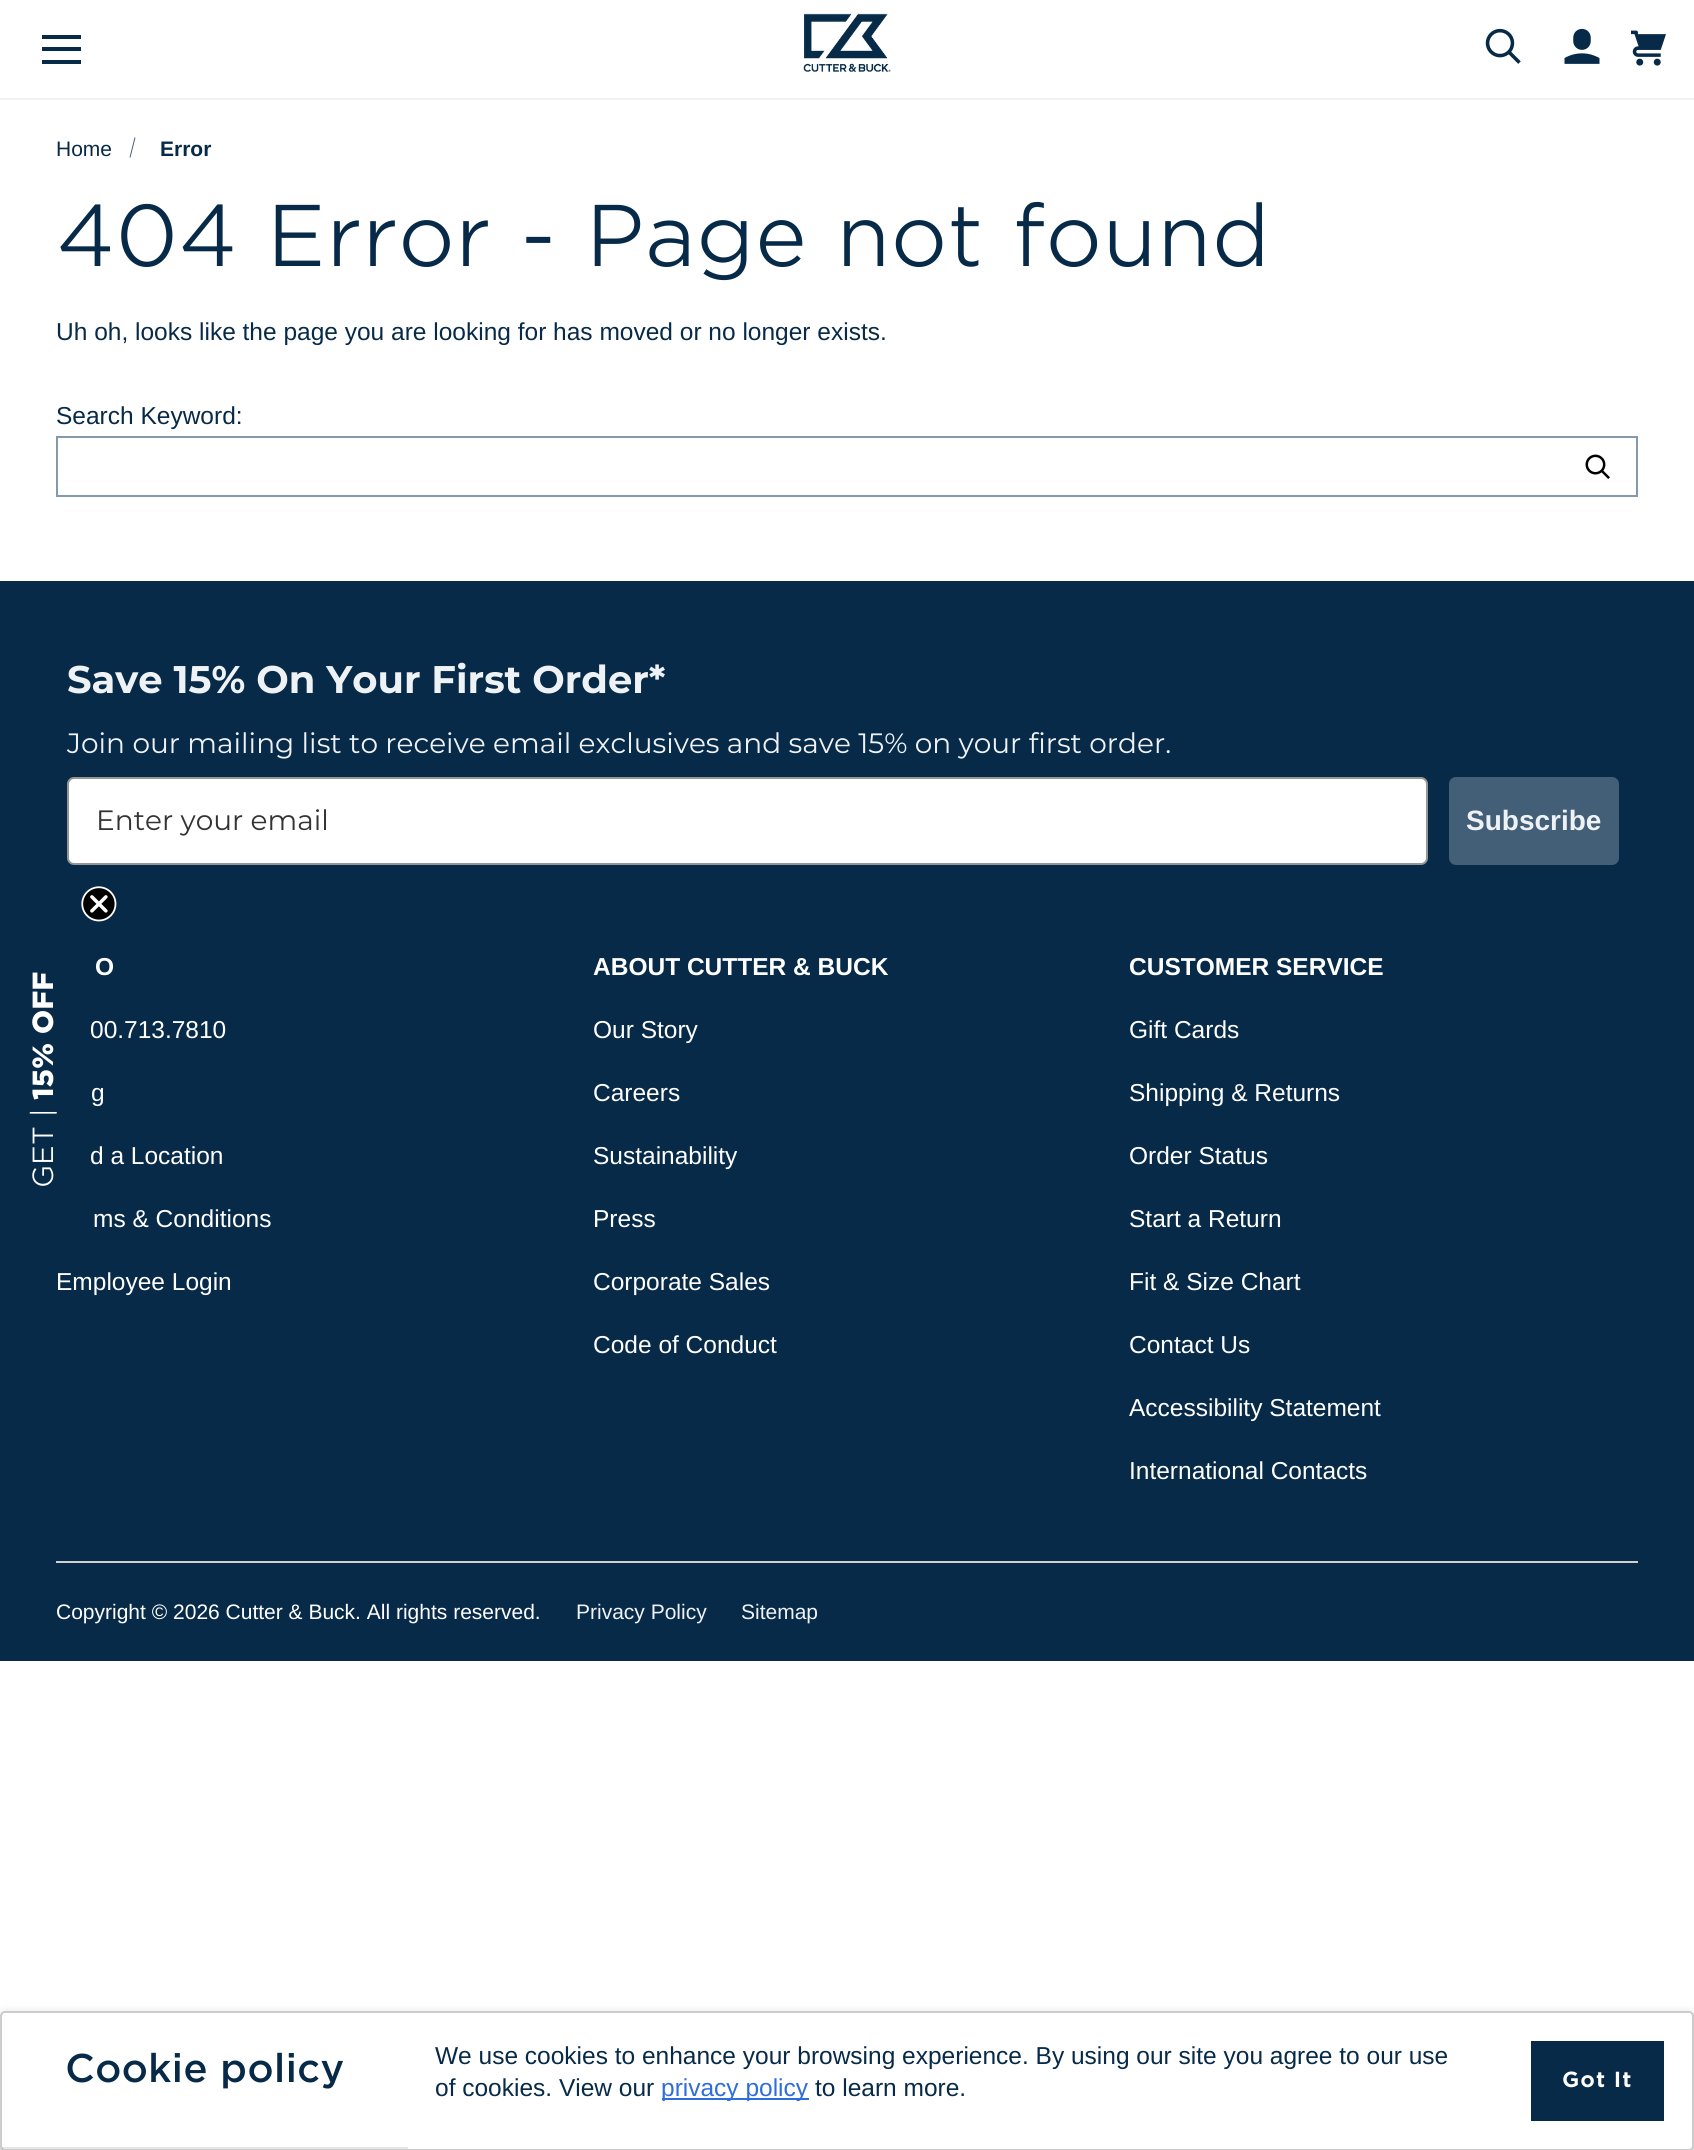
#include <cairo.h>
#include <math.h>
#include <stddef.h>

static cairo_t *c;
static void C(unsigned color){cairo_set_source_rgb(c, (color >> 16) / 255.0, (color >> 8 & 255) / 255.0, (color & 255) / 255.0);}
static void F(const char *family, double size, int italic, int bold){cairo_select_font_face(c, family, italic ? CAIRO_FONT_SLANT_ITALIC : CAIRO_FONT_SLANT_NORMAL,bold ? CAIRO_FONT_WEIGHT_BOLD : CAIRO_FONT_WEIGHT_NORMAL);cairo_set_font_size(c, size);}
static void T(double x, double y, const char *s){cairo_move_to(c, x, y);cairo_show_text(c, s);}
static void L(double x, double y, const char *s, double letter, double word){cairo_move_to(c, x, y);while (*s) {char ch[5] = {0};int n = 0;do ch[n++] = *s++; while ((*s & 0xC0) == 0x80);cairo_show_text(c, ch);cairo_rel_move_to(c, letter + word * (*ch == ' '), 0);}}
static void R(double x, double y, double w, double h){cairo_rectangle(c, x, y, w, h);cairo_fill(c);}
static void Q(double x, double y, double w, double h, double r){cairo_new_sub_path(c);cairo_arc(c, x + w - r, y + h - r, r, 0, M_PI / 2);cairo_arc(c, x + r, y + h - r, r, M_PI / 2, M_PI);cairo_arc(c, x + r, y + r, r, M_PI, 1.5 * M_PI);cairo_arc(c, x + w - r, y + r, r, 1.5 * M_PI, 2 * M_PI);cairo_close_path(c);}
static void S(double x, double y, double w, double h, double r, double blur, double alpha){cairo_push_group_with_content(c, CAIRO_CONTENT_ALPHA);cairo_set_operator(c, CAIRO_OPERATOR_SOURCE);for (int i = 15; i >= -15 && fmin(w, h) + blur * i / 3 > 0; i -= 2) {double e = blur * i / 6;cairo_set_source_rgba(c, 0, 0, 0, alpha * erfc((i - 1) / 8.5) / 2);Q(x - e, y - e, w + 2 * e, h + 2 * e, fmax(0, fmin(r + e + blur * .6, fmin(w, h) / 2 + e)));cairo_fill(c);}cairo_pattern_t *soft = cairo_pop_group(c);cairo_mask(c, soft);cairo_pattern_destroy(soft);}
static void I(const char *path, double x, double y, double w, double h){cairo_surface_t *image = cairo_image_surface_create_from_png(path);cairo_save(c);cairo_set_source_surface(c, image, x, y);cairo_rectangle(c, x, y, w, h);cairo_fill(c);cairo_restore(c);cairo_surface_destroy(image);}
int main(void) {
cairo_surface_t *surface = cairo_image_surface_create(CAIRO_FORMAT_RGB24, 1694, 2150);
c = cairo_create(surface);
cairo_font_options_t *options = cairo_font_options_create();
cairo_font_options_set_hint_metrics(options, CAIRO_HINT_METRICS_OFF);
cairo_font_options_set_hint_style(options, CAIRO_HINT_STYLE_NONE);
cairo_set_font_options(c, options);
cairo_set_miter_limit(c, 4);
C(0xffffff);
cairo_paint(c);
C(0xeff2f4);
R(0,98,1694,2);
C(0x072a48);
R(42,35,39,4);
R(42,47,39,4);
R(42,60,39,4);
I("1.png",803,13,88,59);
I("2.png",1485,28,36,36);
I("3.png",1564,28,36,36);
I("4.png",1631,30,35,36);
F("Liberation Sans",21,0,0);
T(56,156,"Home");
C(0x425f77);
cairo_new_path(c);
cairo_move_to(c,135.5,137.5);
cairo_line_to(c,130.5,157.5);
cairo_line_to(c,129.5,157.5);
cairo_line_to(c,134.5,137.5);
cairo_close_path(c);
cairo_fill(c);
F("Liberation Sans",21,0,1);
C(0x072a48);
T(160,156,"Error");
F("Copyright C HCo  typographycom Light",84,0,0);
L(56,266,"404 Error - Page not found",0,2);
F("Liberation Sans",24.5,0,0);
T(56,340,"Uh oh, looks like the page you are looking for has moved or no longer exists.");
T(56,424,"Search Keyword:");
cairo_rectangle(c,57,437,1580,59);
C(0x8499aa);
cairo_stroke(c);
I("5.png",1585,454,25,25);
C(0x072a48);
R(0,581,1694,1080);
I("6.png",81,886,36,36);
F("Copyright C HCo  typographycom",28,0,0);
C(0xffffff);
cairo_save(c);
cairo_translate(c,53,1100);
cairo_rotate(c,-90 * M_PI / 180);
T(0,0,"15% OFF");
cairo_restore(c);
F("Copyright C HCo  typographycom Light",28,0,0);
cairo_save(c);
cairo_translate(c,53,1188);
cairo_rotate(c,-90 * M_PI / 180);
T(0,0,"GET |");
cairo_restore(c);
F("Montserrat",38.5,0,1);
C(0xeff2f4);
T(67,693,"Save 15% On Your First Order*");
F("Montserrat",28,0,0);
T(67,753,"Join our mailing list to receive email exclusives and save 15% on your first order.");
C(0xffffff);
Q(68,778,1359,86,6);
cairo_fill_preserve(c);
C(0x949596);
cairo_stroke(c);
C(0x333333);
T(96,830,"Enter your email");
C(0x425f77);
Q(1449,777,170,88,7);
cairo_fill(c);
F("Liberation Sans",28,0,1);
C(0xeff2f4);
T(1466,830,"Subscribe");
F("Liberation Sans",24.5,0,1);
C(0xffffff);
T(95,975,"O");
F("Liberation Sans",24.5,0,0);
T(90,1038,"00.713.7810");
T(91,1101,"g");
T(90,1164,"d a Location");
T(93,1227,"ms & Conditions");
T(56,1290,"Employee Login");
F("Liberation Sans",24.5,0,1);
T(593,975,"ABOUT CUTTER & BUCK");
F("Liberation Sans",24.5,0,0);
T(593,1038,"Our Story");
T(593,1101,"Careers");
T(593,1164,"Sustainability");
T(593,1227,"Press");
T(593,1290,"Corporate Sales");
T(593,1353,"Code of Conduct");
F("Liberation Sans",24.5,0,1);
T(1129,975,"CUSTOMER SERVICE");
F("Liberation Sans",24.5,0,0);
T(1129,1038,"Gift Cards");
T(1129,1101,"Shipping & Returns");
T(1129,1164,"Order Status");
T(1129,1227,"Start a Return");
T(1129,1290,"Fit & Size Chart");
T(1129,1353,"Contact Us");
T(1129,1416,"Accessibility Statement");
T(1129,1479,"International Contacts");
C(0xd1d1d1);
R(56,1561,1582,2);
F("Liberation Sans",21,0,0);
C(0xffffff);
T(56,1619,"Copyright © 2026 Cutter & Buck. All rights reserved.");
C(0xeff2f4);
T(576,1619,"Privacy Policy");
T(741,1619,"Sitemap");
C(0x000000);
S(0,2018,1694,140,5,7,.3);
C(0xffffff);
Q(0,2011,1694,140,5);
cairo_fill(c);
Q(1,2012,1692,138,4);
cairo_set_source_rgba(c,0,0,0,0.2);
cairo_stroke(c);
cairo_set_source_rgba(c,0,0,0,0.1);
R(2,2147,406,2);
F("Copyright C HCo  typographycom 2 Light",38.5,0,0);
C(0x072a48);
T(65,2082,"Cookie policy");
F("Liberation Sans",24.5,0,0);
T(435,2064,"We use cookies to enhance your browsing experience. By using our site you agree to our use");
T(435,2096,"of cookies. View our");
C(0x2f6cdd);
R(662,2098,147,2);
T(661,2096,"privacy policy");
C(0x072a48);
T(815,2096,"to learn more.");
R(1531,2041,133,80);
F("Copyright C HCo  typographycom 2",21,0,0);
C(0xffffff);
L(1562,2087,"Got It",1,0);
cairo_surface_write_to_png(surface, "o.png");
cairo_font_options_destroy(options);
cairo_destroy(c);
cairo_surface_destroy(surface);
return 0;
}
